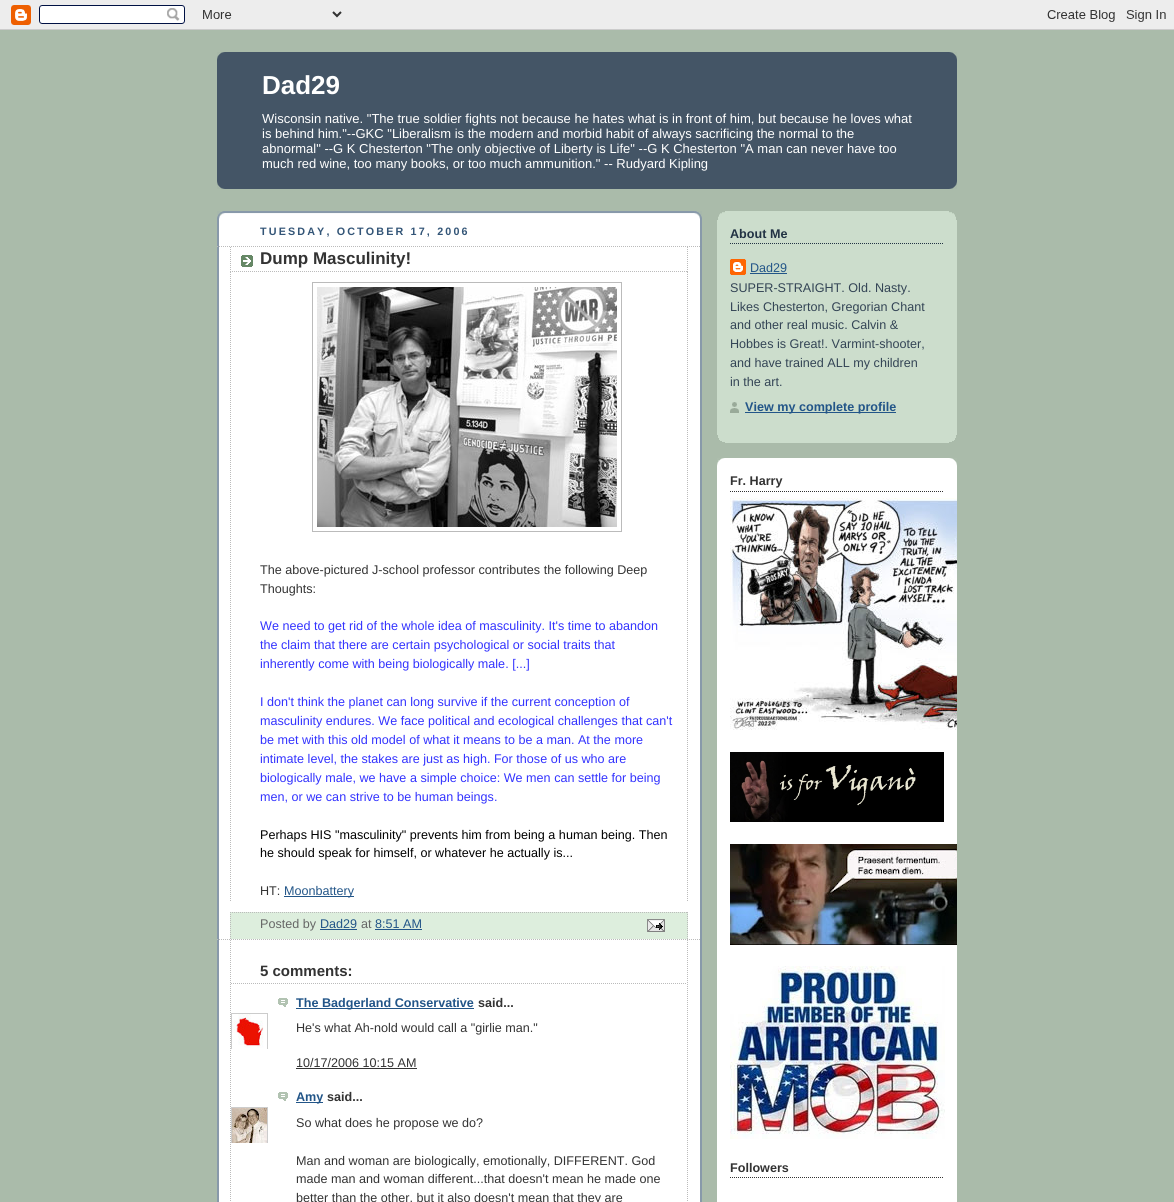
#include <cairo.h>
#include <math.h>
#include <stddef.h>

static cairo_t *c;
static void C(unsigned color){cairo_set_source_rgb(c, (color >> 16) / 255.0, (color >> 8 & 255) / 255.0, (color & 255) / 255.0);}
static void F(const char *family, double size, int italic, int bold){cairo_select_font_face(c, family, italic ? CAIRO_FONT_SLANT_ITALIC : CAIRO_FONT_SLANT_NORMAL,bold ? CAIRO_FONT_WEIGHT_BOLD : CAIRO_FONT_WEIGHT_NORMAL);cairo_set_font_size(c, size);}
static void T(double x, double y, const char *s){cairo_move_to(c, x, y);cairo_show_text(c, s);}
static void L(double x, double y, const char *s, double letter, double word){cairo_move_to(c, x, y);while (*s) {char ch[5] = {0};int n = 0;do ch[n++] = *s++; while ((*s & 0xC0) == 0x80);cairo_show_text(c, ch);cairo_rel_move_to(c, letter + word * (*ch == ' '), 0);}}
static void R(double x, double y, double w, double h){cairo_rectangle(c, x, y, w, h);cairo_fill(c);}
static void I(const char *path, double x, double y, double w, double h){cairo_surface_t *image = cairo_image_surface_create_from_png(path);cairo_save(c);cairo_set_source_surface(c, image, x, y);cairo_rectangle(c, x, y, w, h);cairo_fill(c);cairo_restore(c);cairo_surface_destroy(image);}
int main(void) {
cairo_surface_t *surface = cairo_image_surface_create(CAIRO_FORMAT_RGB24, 1174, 1202);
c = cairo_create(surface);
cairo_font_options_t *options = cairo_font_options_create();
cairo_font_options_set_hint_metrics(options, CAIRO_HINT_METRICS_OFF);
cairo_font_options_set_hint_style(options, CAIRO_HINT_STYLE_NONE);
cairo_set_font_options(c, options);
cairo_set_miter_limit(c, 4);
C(0xaabbaa);
cairo_paint(c);
I("1.png",0,0,1174,30);
C(0x445566);
R(217,52,740,137);
I("2.png",217,52,740,8);
I("3.png",217,181,740,8);
F("Liberation Sans",26,0,1);
C(0xffffff);
T(262,94,"Dad29");
F("Liberation Sans",13,0,0);
T(262,123,"Wisconsin native. \"The true soldier fights not because he hates what is in front of him, but because he loves what");
T(262,138,"is behind him.\"--GKC \"Liberalism is the modern and morbid habit of always sacrificing the normal to the");
T(262,153,"abnormal\" --G K Chesterton \"The only objective of Liberty is Life\" --G K Chesterton \"A man can never have too");
T(262,168,"much red wine, too many books, or too much ammunition.\" -- Rudyard Kipling");
R(219,213,481,989);
I("4.png",217,211,485,51);
I("5.png",217,262,485,940);
F("Liberation Sans",10.75,0,1);
C(0x335577);
L(260,235,"TUESDAY, OCTOBER 17, 2006",2.15,0);
cairo_new_path(c);
cairo_move_to(c,217,246.5);
cairo_line_to(c,701,246.5);
C(0xbbbbbb);
cairo_set_line_width(c,1);
cairo_set_dash(c,(double[]){1,1},2,0);
cairo_stroke(c);
cairo_new_path(c);
cairo_move_to(c,217,939.5);
cairo_line_to(c,701,939.5);
cairo_stroke(c);
I("6.png",241,255,12,12);
cairo_new_path(c);
cairo_move_to(c,687.5,247);
cairo_line_to(c,687.5,272);
cairo_stroke(c);
cairo_new_path(c);
cairo_move_to(c,230,271.5);
cairo_line_to(c,688,271.5);
cairo_stroke(c);
cairo_new_path(c);
cairo_move_to(c,230.5,247);
cairo_line_to(c,230.5,272);
cairo_stroke(c);
F("Liberation Sans",17,0,1);
C(0x333333);
T(260,264,"Dump Masculinity!");
cairo_new_path(c);
cairo_move_to(c,687.5,272);
cairo_line_to(c,687.5,902);
C(0xbbbbbb);
cairo_stroke(c);
cairo_new_path(c);
cairo_move_to(c,230.5,272);
cairo_line_to(c,230.5,902);
cairo_stroke(c);
cairo_rectangle(c,312.5,282.5,309,249);
cairo_set_dash(c,NULL,0,0);
cairo_stroke(c);
I("7.png",317,287,300,240);
F("Liberation Sans",12.6,0,0);
C(0x333333);
T(260,574,"The above-pictured J-school professor contributes the following Deep");
T(260,593,"Thoughts:");
C(0x3333ff);
T(260,630,"We need to get rid of the whole idea of masculinity. It's time to abandon");
T(260,649,"the claim that there are certain psychological or social traits that");
T(260,668,"inherently come with being biologically male. [...]");
T(260,706,"I don't think the planet can long survive if the current conception of");
T(260,725,"masculinity endures. We face political and ecological challenges that can't");
T(260,744,"be met with this old model of what it means to be a man. At the more");
T(260,763,"intimate level, the stakes are just as high. For those of us who are");
T(260,782,"biologically male, we have a simple choice: We men can settle for being");
T(260,801,"men, or we can strive to be human beings.");
C(0x000000);
T(260,839,"Perhaps HIS \"masculinity\" prevents him from being a human being. Then");
T(260,857,"he should speak for himself, or whatever he actually is...");
C(0x333333);
T(260,895,"HT:");
C(0x225588);
R(284,896,70,1);
T(284,895,"Moonbattery");
C(0xddeedd);
R(230,912,458,27);
cairo_new_path(c);
cairo_move_to(c,230,912.5);
cairo_line_to(c,688,912.5);
C(0xbbbbbb);
cairo_set_dash(c,(double[]){1,1},2,0);
cairo_stroke(c);
cairo_new_path(c);
cairo_move_to(c,687.5,912);
cairo_line_to(c,687.5,939);
cairo_stroke(c);
cairo_new_path(c);
cairo_move_to(c,230.5,912);
cairo_line_to(c,230.5,939);
cairo_stroke(c);
C(0x666666);
T(260,928,"Posted by");
C(0x225588);
T(320,928,"Dad29");
R(320,929,37,1);
C(0x666666);
T(361,928,"at");
C(0x225588);
T(375,928,"8:51 AM");
R(375,929,47,1);
I("8.png",647,919,18,13);
cairo_new_path(c);
cairo_move_to(c,687.5,940);
cairo_line_to(c,687.5,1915);
C(0xbbbbbb);
cairo_stroke(c);
cairo_new_path(c);
cairo_move_to(c,230.5,940);
cairo_line_to(c,230.5,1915);
cairo_stroke(c);
cairo_new_path(c);
cairo_move_to(c,231,983.5);
cairo_line_to(c,687,983.5);
cairo_stroke(c);
F("Liberation Sans",15,0,1);
C(0x333333);
T(260,976,"5 comments:");
I("9.png",278,998,10,9);
C(0x225588);
R(296,1008,178,1);
F("Liberation Sans",12.6,0,1);
T(296,1007,"The Badgerland Conservative");
C(0x333333);
T(478,1007,"said...");
cairo_save(c);
cairo_rectangle(c,231,1013,37,36);
cairo_clip(c);
cairo_rectangle(c,231.5,1013.5,36,36);
C(0xcccccc);
cairo_set_dash(c,NULL,0,0);
cairo_stroke(c);
cairo_restore(c);
I("10.png",232,1014,32,34);
F("Liberation Sans",12.6,0,0);
T(296,1032,"He's what Ah-nold would call a \"girlie man.\"");
T(296,1067,"10/17/2006 10:15 AM");
R(296,1068,121,1);
I("9.png",278,1092,10,9);
C(0x225588);
R(296,1102,27,1);
F("Liberation Sans",12.6,0,1);
T(296,1101,"Amy");
C(0x333333);
T(327,1101,"said...");
cairo_save(c);
cairo_rectangle(c,231,1107,37,36);
cairo_clip(c);
cairo_rectangle(c,231.5,1107.5,36,36);
C(0xcccccc);
cairo_set_dash(c,NULL,0,0);
cairo_stroke(c);
cairo_restore(c);
I("11.png",232,1108,35,35);
F("Liberation Sans",12.6,0,0);
T(296,1127,"So what does he propose we do?");
T(296,1165,"Man and woman are biologically, emotionally, DIFFERENT. God");
T(296,1183,"made man and woman different...that doesn't mean he made one");
T(296,1202,"better than the other, but it also doesn't mean that they are");
C(0xccddcc);
R(717,211,240,232);
I("12.png",717,435,240,8);
I("13.png",717,211,240,9);
cairo_new_path(c);
cairo_move_to(c,730,243.5);
cairo_line_to(c,944,243.5);
C(0x223344);
cairo_stroke(c);
F("Liberation Sans",12.6,0,1);
T(730,238,"About Me");
I("14.png",730,259,16,16);
F("Liberation Sans",12.6,0,0);
C(0x225588);
T(750,272,"Dad29");
R(750,273,37,1);
C(0x334455);
T(730,292,"SUPER-STRAIGHT. Old. Nasty.");
T(730,311,"Likes Chesterton, Gregorian Chant");
T(730,329,"and other real music. Calvin &");
T(730,348,"Hobbes is Great!. Varmint-shooter,");
T(730,367,"and have trained ALL my children");
T(730,386,"in the art.");
I("15.png",730,402,9,11);
C(0x225588);
R(745,412,151,1);
F("Liberation Sans",12.6,0,1);
T(745,411,"View my complete profile");
C(0xffffff);
R(717,458,240,744);
I("16.png",717,458,240,8);
cairo_new_path(c);
cairo_move_to(c,730,491.5);
cairo_line_to(c,944,491.5);
C(0x333333);
cairo_stroke(c);
T(730,485,"Fr. Harry");
I("17.png",730,498,227,232);
I("18.png",730,752,214,70);
I("19.png",730,844,227,101);
I("20.png",730,966,215,173);
cairo_new_path(c);
cairo_move_to(c,730,1177.5);
cairo_line_to(c,944,1177.5);
cairo_stroke(c);
T(730,1172,"Followers");
cairo_surface_write_to_png(surface, "o.png");
cairo_font_options_destroy(options);
cairo_destroy(c);
cairo_surface_destroy(surface);
return 0;
}
